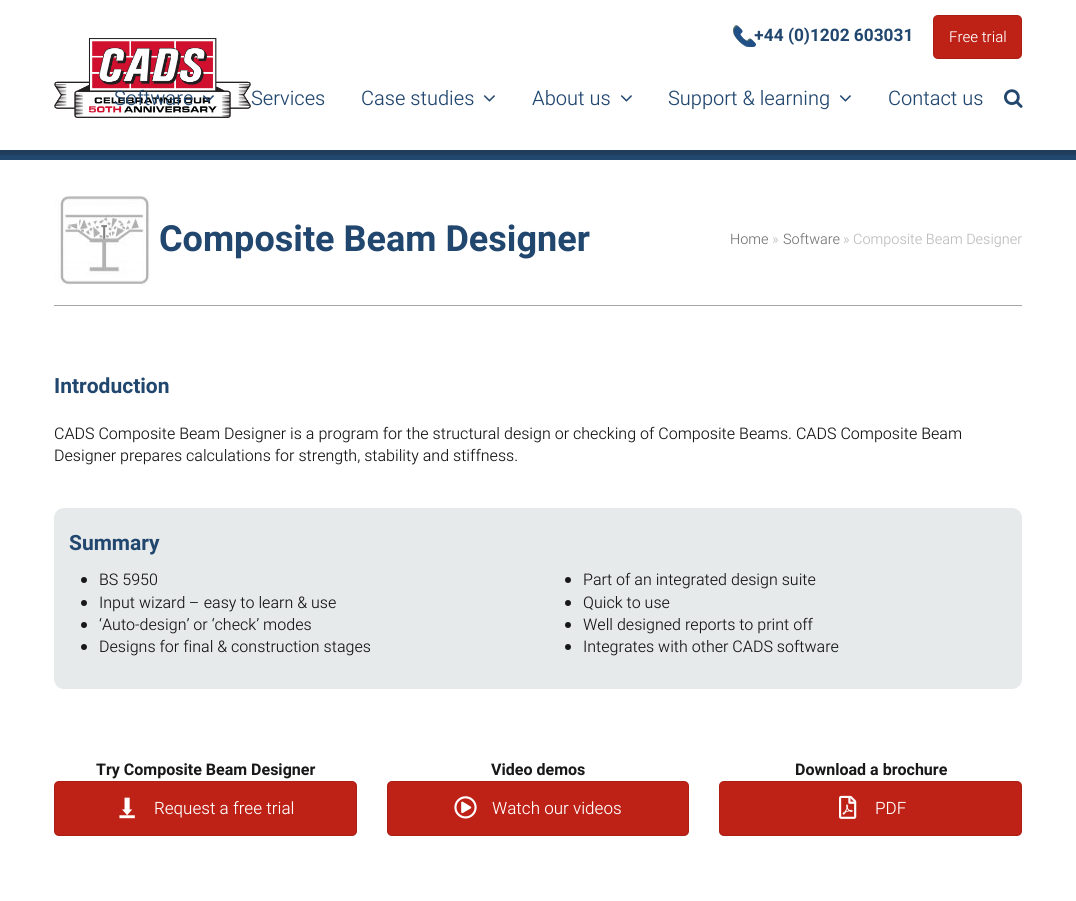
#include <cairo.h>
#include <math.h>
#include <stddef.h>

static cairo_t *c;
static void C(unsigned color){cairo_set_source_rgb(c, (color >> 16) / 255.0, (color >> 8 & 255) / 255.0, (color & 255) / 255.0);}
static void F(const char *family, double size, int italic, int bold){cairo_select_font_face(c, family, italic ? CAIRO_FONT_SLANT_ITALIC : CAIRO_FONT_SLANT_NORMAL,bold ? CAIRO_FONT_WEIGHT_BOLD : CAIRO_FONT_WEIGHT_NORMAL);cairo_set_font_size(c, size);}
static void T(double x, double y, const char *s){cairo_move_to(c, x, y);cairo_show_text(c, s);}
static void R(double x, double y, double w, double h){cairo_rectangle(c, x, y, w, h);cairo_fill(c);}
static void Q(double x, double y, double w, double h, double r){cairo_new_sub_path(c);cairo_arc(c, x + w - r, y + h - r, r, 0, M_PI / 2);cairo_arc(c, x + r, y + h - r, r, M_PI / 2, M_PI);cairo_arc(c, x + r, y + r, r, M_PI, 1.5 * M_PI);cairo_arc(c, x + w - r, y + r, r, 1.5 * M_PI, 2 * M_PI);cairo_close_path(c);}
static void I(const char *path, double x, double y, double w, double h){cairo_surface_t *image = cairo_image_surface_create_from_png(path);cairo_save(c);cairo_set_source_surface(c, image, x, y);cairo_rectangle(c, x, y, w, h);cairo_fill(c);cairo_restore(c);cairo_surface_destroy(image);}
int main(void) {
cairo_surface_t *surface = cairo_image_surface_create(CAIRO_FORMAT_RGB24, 1076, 901);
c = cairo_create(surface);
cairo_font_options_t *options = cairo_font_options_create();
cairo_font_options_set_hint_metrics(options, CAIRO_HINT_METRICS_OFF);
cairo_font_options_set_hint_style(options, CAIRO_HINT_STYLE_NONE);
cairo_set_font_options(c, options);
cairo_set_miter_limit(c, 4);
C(0xffffff);
cairo_paint(c);
C(0x203d5d);
R(0,150,1076,5);
I("1.png",733,25,23,22);
F("Heebo",17.25,0,1);
C(0x22476f);
T(754,41,"+44 (0)1202 603031");
C(0xbe2116);
Q(933,15,89,44,5);
cairo_fill(c);
Q(933.5,15.5,88,43,4.5);
cairo_set_source_rgba(c,0,0,0,0.1);
cairo_set_line_width(c,1);
cairo_stroke(c);
F("Heebo Light",15,0,0);
C(0xffffff);
T(949,42,"Free trial");
I("2.png",54,38,197,80);
F("Heebo Light",20,0,0);
C(0x22476f);
T(114,105,"Software");
I("3.png",202,95,12,7);
T(251,105,"Services");
T(361,105,"Case studies");
I("4.png",483,95,12,7);
T(532,105,"About us");
I("4.png",620,95,12,7);
T(668,105,"Support & learning");
I("4.png",839,95,12,7);
T(888,105,"Contact us");
I("5.png",1004,89,19,19);
R(0,155,1076,5);
I("6.png",54,196,96,89);
F("Heebo",36,0,1);
T(159,251,"Composite Beam Designer");
F("Heebo Light",14.4,0,0);
C(0x777777);
T(730,244,"Home");
C(0xbcbcbc);
T(772,244,"»");
C(0x777777);
T(783,244,"Software");
C(0xbcbcbc);
T(843,244,"» Composite Beam Designer");
C(0xa6a6a6);
R(54,305,968,1);
F("Heebo",21,0,1);
C(0x22476f);
T(54,393,"Introduction");
F("Heebo Light",16,0,0);
C(0x181818);
T(54,439,"CADS Composite Beam Designer is a program for the structural design or checking of Composite Beams. CADS Composite Beam");
T(54,461,"Designer prepares calculations for strength, stability and stiffness.");
C(0xe6eaeb);
Q(54,508,968,181,10);
cairo_fill(c);
F("Heebo",21,0,1);
C(0x22476f);
T(69,550,"Summary");
C(0x181818);
cairo_new_path(c);
cairo_arc(c,84,580,3,0,2 * M_PI);
cairo_fill(c);
F("Heebo Light",16,0,0);
T(99,585,"BS 5950");
cairo_new_path(c);
cairo_arc(c,84,603,3,0,2 * M_PI);
cairo_fill(c);
T(99,608,"Input wizard – easy to learn & use");
cairo_new_path(c);
cairo_arc(c,84,625,3,0,2 * M_PI);
cairo_fill(c);
T(99,630,"‘Auto-design’ or ‘check’ modes");
cairo_new_path(c);
cairo_arc(c,84,647,3,0,2 * M_PI);
cairo_fill(c);
T(99,652,"Designs for final & construction stages");
cairo_new_path(c);
cairo_arc(c,568,580,3,0,2 * M_PI);
cairo_fill(c);
T(583,585,"Part of an integrated design suite");
cairo_new_path(c);
cairo_arc(c,568,603,3,0,2 * M_PI);
cairo_fill(c);
T(583,608,"Quick to use");
cairo_new_path(c);
cairo_arc(c,568,625,3,0,2 * M_PI);
cairo_fill(c);
T(583,630,"Well designed reports to print off");
cairo_new_path(c);
cairo_arc(c,568,647,3,0,2 * M_PI);
cairo_fill(c);
T(583,652,"Integrates with other CADS software");
F("Heebo",16,0,1);
T(96,775,"Try Composite Beam Designer");
C(0xbe2116);
Q(54,781,303,55,5);
cairo_fill(c);
Q(54.5,781.5,302,54,4.5);
cairo_set_source_rgba(c,0,0,0,0.1);
cairo_stroke(c);
I("7.png",119,797,16,22);
F("Heebo Light",17,0,0);
C(0xffffff);
T(154,814,"Request a free trial");
F("Heebo",16,0,1);
C(0x181818);
T(491,775,"Video demos");
C(0xbe2116);
Q(387,781,302,55,5);
cairo_fill(c);
Q(387.5,781.5,301,54,4.5);
cairo_set_source_rgba(c,0,0,0,0.1);
cairo_stroke(c);
I("8.png",454,796,23,23);
F("Heebo Light",17,0,0);
C(0xffffff);
T(492,814,"Watch our videos");
F("Heebo",16,0,1);
C(0x181818);
T(795,775,"Download a brochure");
C(0xbe2116);
Q(719,781,303,55,5);
cairo_fill(c);
Q(719.5,781.5,302,54,4.5);
cairo_set_source_rgba(c,0,0,0,0.1);
cairo_stroke(c);
I("9.png",839,795,18,24);
F("Heebo Light",17,0,0);
C(0xffffff);
T(875,814,"PDF");
cairo_surface_write_to_png(surface, "o.png");
cairo_font_options_destroy(options);
cairo_destroy(c);
cairo_surface_destroy(surface);
return 0;
}
